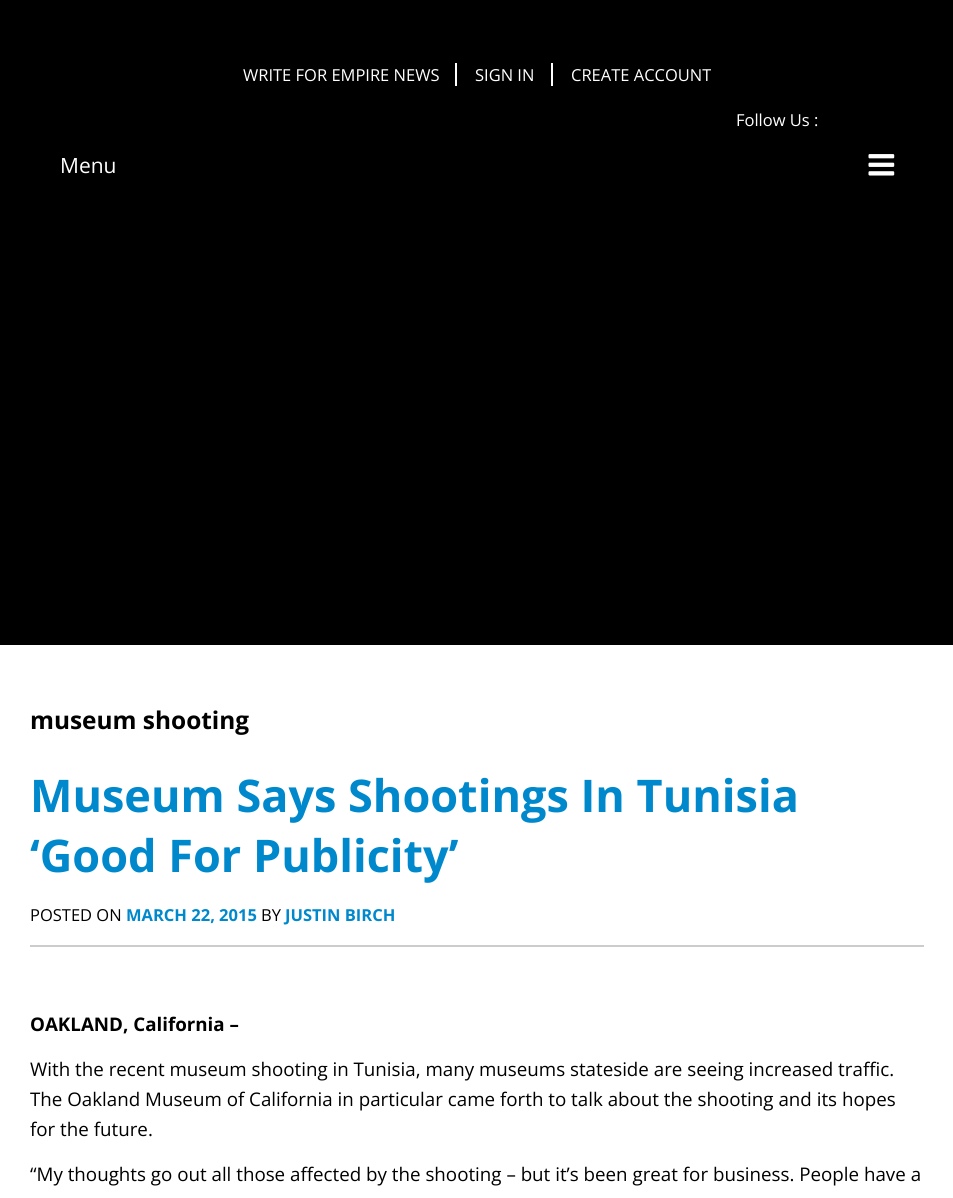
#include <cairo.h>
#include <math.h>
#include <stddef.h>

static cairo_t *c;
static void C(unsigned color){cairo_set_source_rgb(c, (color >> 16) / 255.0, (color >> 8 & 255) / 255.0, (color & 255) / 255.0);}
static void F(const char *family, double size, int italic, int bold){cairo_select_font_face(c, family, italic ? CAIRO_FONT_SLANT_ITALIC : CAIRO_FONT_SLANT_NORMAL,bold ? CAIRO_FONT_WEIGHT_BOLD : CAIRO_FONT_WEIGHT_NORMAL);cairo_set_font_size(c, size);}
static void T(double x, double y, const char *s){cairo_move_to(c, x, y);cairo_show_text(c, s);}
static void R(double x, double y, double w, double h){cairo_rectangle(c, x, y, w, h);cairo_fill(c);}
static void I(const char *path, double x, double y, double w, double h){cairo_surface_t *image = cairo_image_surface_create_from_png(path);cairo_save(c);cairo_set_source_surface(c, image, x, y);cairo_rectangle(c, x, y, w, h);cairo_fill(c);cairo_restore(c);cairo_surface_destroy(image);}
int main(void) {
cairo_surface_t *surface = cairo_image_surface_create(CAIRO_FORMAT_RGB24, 953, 1198);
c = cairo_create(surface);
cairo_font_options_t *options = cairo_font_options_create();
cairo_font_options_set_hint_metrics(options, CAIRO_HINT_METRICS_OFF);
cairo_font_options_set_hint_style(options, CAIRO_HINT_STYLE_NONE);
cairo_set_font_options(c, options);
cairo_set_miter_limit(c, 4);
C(0x000000);
cairo_paint(c);
F("Open Sans",16.5,0,0);
C(0xffffff);
T(243,81,"WRITE FOR EMPIRE NEWS");
R(455,63,2,23);
T(475,81,"SIGN IN");
R(551,63,2,23);
T(571,81,"CREATE ACCOUNT");
T(736,126,"Follow Us :");
F("Open Sans",21,0,0);
T(60,173,"Menu");
I("1.png",868,154,27,22);
R(0,645,953,553);
F("Open Sans",24.4,0,1);
C(0x000000);
T(30,729,"museum shooting");
C(0xcccccc);
R(30,945,894,2);
F("Open Sans",45,0,1);
C(0x0088cc);
T(30,812,"Museum Says Shootings In Tunisia");
T(30,872,"‘Good For Publicity’");
F("Open Sans",16.5,0,0);
C(0x000000);
T(30,921,"POSTED ON");
F("Open Sans",16.5,0,1);
C(0x0088cc);
T(126,921,"MARCH 22, 2015");
F("Open Sans",16.5,0,0);
C(0x000000);
T(261,921,"BY");
F("Open Sans",16.5,0,1);
C(0x0088cc);
T(285,921,"JUSTIN BIRCH");
F("Open Sans",18.75,0,1);
C(0x000000);
T(30,1031,"OAKLAND, California –");
F("Open Sans",18.75,0,0);
T(30,1076,"With the recent museum shooting in Tunisia, many museums stateside are seeing increased traffic.");
T(30,1106,"The Oakland Museum of California in particular came forth to talk about the shooting and its hopes");
T(30,1136,"for the future.");
T(30,1181,"“My thoughts go out all those affected by the shooting – but it’s been great for business. People have a");
cairo_surface_write_to_png(surface, "o.png");
cairo_font_options_destroy(options);
cairo_destroy(c);
cairo_surface_destroy(surface);
return 0;
}
